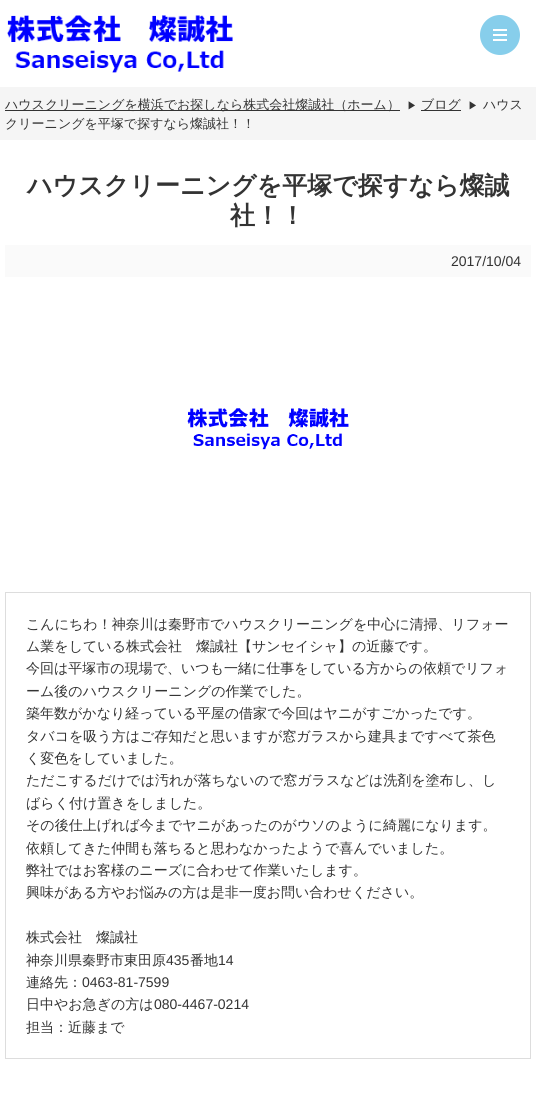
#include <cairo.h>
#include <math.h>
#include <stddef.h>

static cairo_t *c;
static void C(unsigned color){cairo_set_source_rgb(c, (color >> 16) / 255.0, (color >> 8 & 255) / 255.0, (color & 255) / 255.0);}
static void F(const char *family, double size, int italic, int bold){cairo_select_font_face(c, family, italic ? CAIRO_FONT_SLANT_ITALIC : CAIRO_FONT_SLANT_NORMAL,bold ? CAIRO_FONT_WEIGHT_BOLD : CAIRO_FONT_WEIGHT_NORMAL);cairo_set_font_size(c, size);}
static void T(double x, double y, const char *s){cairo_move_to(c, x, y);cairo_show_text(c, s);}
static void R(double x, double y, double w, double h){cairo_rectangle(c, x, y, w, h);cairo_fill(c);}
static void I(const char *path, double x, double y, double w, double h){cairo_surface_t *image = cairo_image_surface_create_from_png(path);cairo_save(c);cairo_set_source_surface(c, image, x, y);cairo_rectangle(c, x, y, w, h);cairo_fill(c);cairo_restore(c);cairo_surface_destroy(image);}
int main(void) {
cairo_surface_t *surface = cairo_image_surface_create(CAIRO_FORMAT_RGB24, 536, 1094);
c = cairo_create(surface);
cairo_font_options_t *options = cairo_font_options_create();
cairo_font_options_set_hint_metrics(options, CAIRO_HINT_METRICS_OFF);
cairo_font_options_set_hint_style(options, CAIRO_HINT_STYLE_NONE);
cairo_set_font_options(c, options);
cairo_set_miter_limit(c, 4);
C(0xffffff);
cairo_paint(c);
I("1.png",7,15,226,58);
C(0x87ceeb);
cairo_arc(c,500,35,20,0,2 * M_PI);
cairo_fill(c);
C(0xffffff);
R(493,34,14,2);
R(493,29,14,2);
R(493,39,14,2);
C(0xf5f5f5);
R(0,87,536,53);
C(0x333333);
R(5,110,395,1);
F("WenQuanYi Zen Hei Medium",13,0,0);
T(5,109,"ハウスクリーニングを横浜でお探しなら株式会社燦誠社（ホーム）");
F("WenQuanYi Zen Hei Medium",10,0,0);
T(407,109,"▶");
R(421,110,40,1);
F("WenQuanYi Zen Hei Medium",13,0,0);
T(421,109,"ブログ");
F("WenQuanYi Zen Hei Medium",10,0,0);
T(468,109,"▶");
F("WenQuanYi Zen Hei Medium",13,0,0);
T(483,109,"ハウス");
T(5,128,"クリーニングを平塚で探すなら燦誠社！！");
F("WenQuanYi Zen Hei",25,0,1);
T(27,194,"ハウスクリーニングを平塚で探すなら燦誠");
T(230,224,"社！！");
C(0xfafafa);
R(5,245,526,32);
F("Liberation Sans",14,0,0);
C(0x333333);
T(451,266,"2017/10/04");
I("2.png",187,408,162,42);
cairo_rectangle(c,5.5,592.5,525,466);
C(0xdddddd);
cairo_set_line_width(c,1);
cairo_stroke(c);
F("WenQuanYi Zen Hei Medium",14,0,0);
C(0x333333);
T(26,629,"こんにちわ！神奈川は秦野市でハウスクリーニングを中心に清掃、リフォー");
T(26,651,"ム業をしている株式会社　燦誠社【サンセイシャ】の近藤です。");
T(26,673,"今回は平塚市の現場で、いつも一緒に仕事をしている方からの依頼でリフォ");
T(26,696,"ーム後のハウスクリーニングの作業でした。");
T(26,718,"築年数がかなり経っている平屋の借家で今回はヤニがすごかったです。");
T(26,741,"タバコを吸う方はご存知だと思いますが窓ガラスから建具まですべて茶色");
T(26,763,"く変色をしていました。");
T(26,785,"ただこするだけでは汚れが落ちないので窓ガラスなどは洗剤を塗布し、し");
T(26,808,"ばらく付け置きをしました。");
T(26,830,"その後仕上げれば今までヤニがあったのがウソのように綺麗になります。");
T(26,853,"依頼してきた仲間も落ちると思わなかったようで喜んでいました。");
T(26,875,"弊社ではお客様のニーズに合わせて作業いたします。");
T(26,897,"興味がある方やお悩みの方は是非一度お問い合わせください。");
T(26,942,"株式会社　燦誠社");
T(26,965,"神奈川県秦野市東田原");
F("Liberation Sans",14,0,0);
T(166,965,"435");
F("WenQuanYi Zen Hei Medium",14,0,0);
T(190,965,"番地");
F("Liberation Sans",14,0,0);
T(218,965,"14");
F("WenQuanYi Zen Hei Medium",14,0,0);
T(26,987,"連絡先：");
F("Liberation Sans",14,0,0);
T(82,987,"0463-81-7599");
F("WenQuanYi Zen Hei Medium",14,0,0);
T(26,1009,"日中やお急ぎの方は");
F("Liberation Sans",14,0,0);
T(154,1009,"080-4467-0214");
F("WenQuanYi Zen Hei Medium",14,0,0);
T(26,1032,"担当：近藤まで");
cairo_surface_write_to_png(surface, "o.png");
cairo_font_options_destroy(options);
cairo_destroy(c);
cairo_surface_destroy(surface);
return 0;
}
